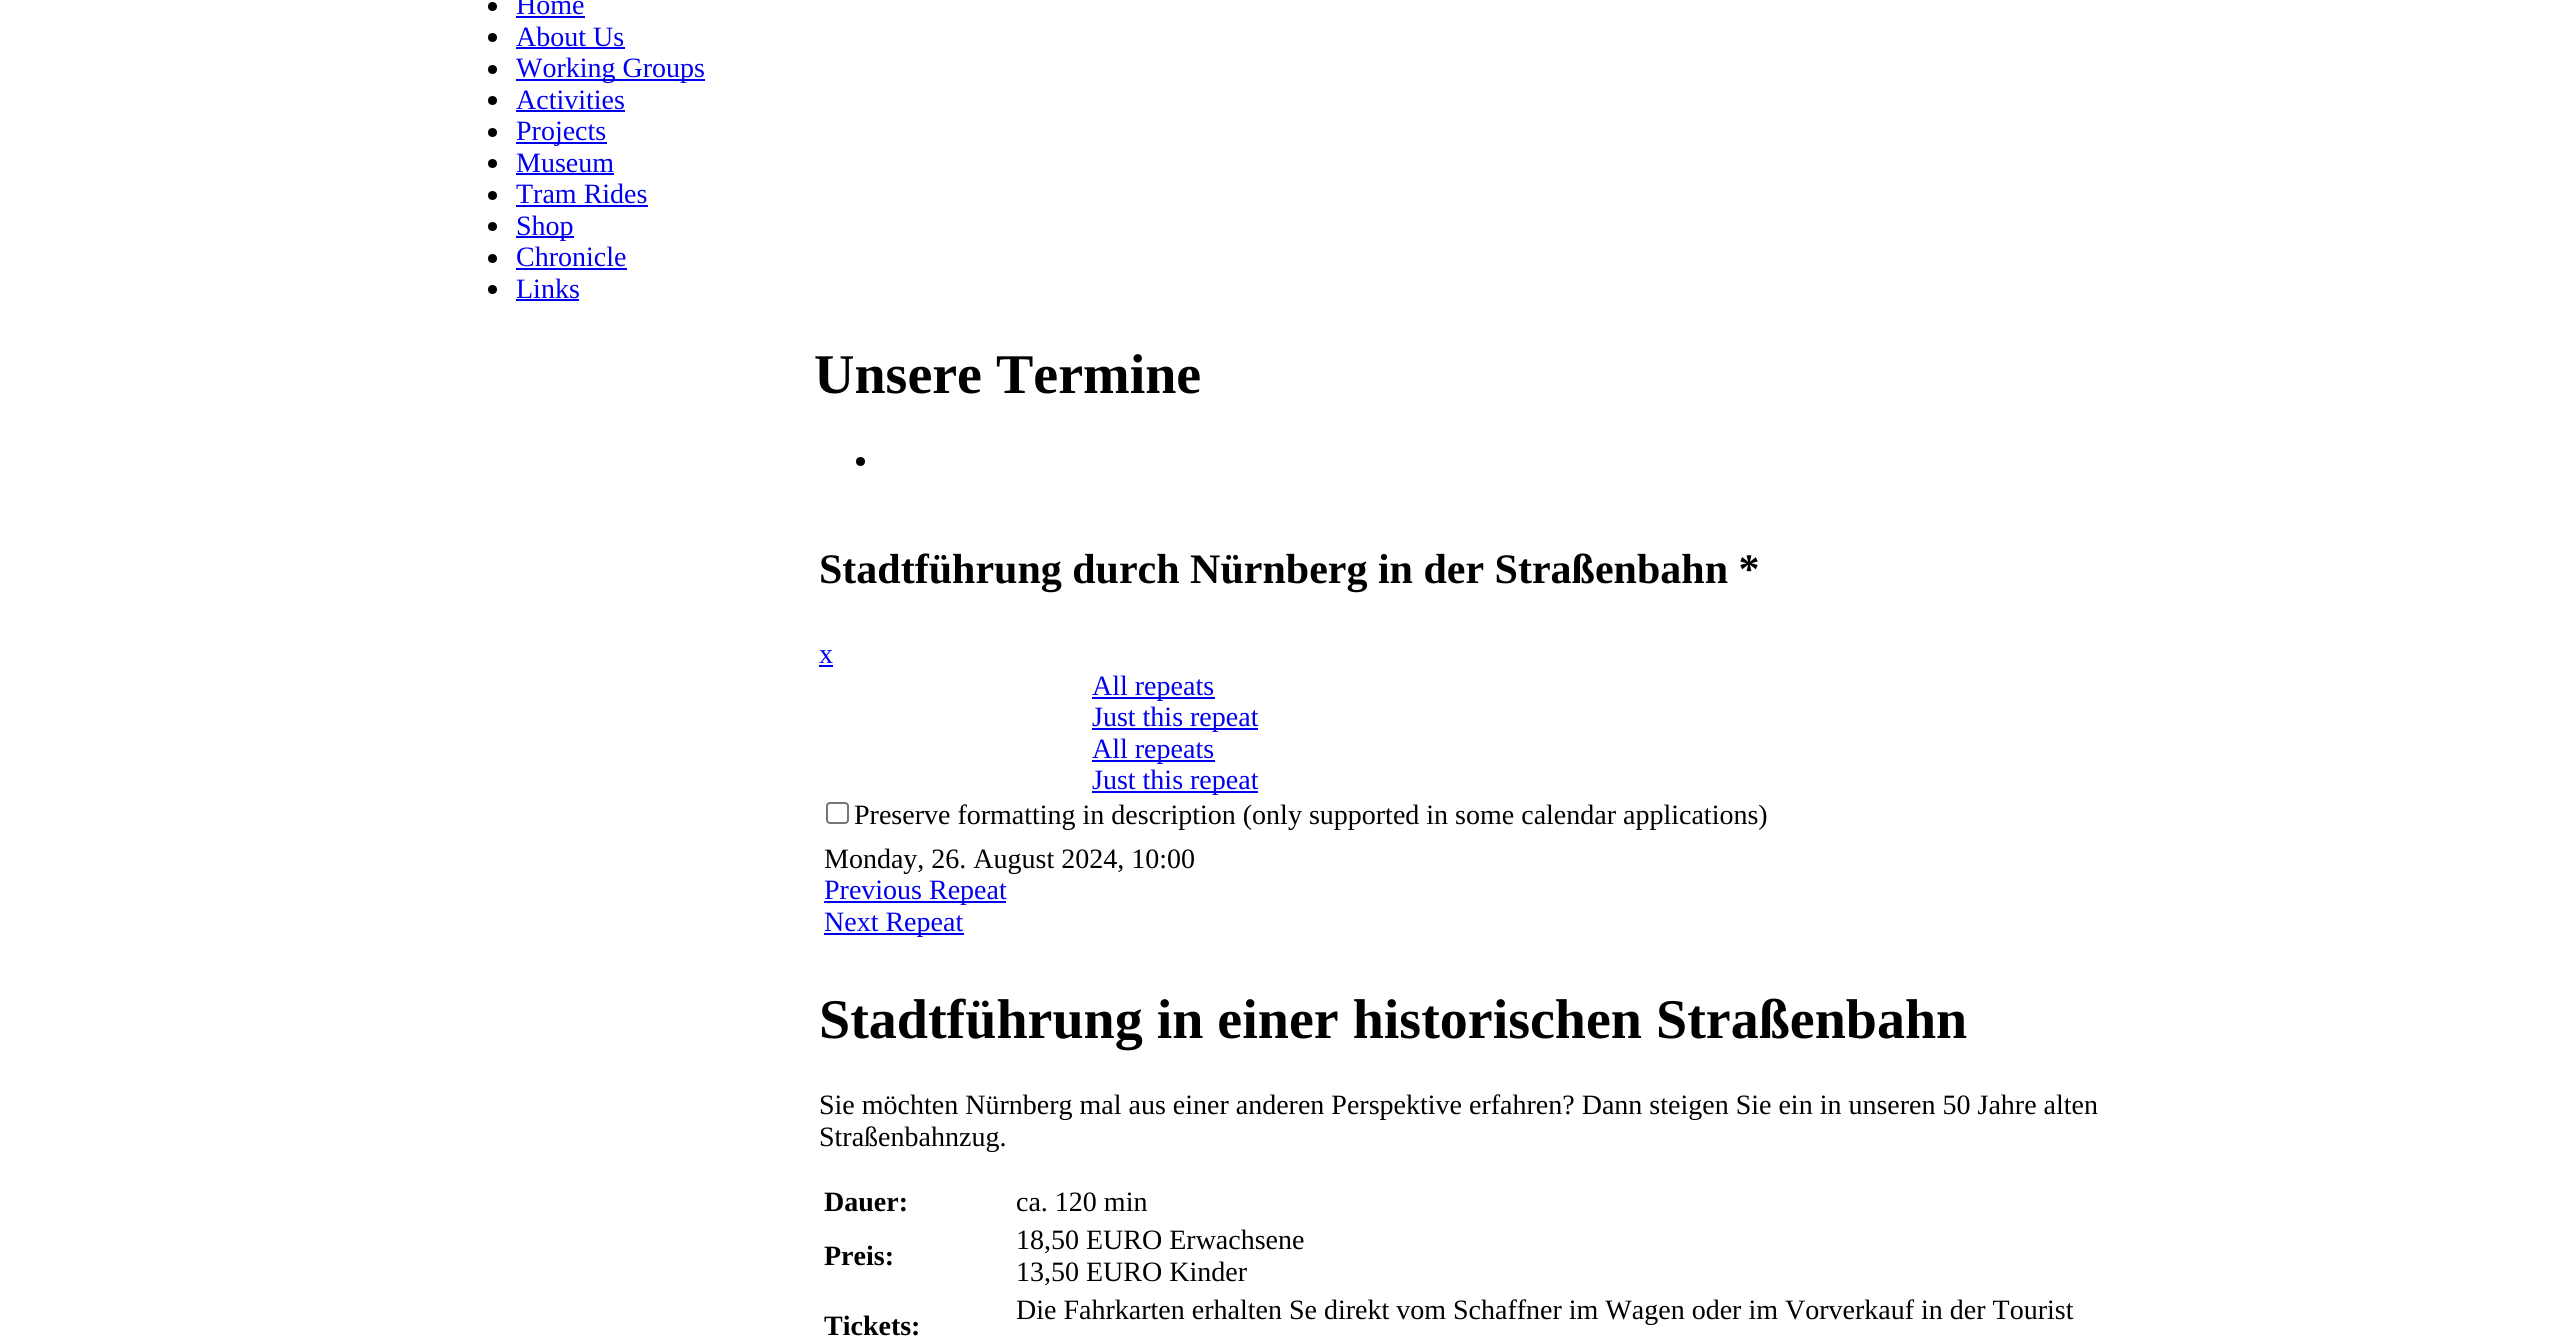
#include <cairo.h>
#include <math.h>
#include <stddef.h>

static cairo_t *c;
static void C(unsigned color){cairo_set_source_rgb(c, (color >> 16) / 255.0, (color >> 8 & 255) / 255.0, (color & 255) / 255.0);}
static void F(const char *family, double size, int italic, int bold){cairo_select_font_face(c, family, italic ? CAIRO_FONT_SLANT_ITALIC : CAIRO_FONT_SLANT_NORMAL,bold ? CAIRO_FONT_WEIGHT_BOLD : CAIRO_FONT_WEIGHT_NORMAL);cairo_set_font_size(c, size);}
static void T(double x, double y, const char *s){cairo_move_to(c, x, y);cairo_show_text(c, s);}
static void R(double x, double y, double w, double h){cairo_rectangle(c, x, y, w, h);cairo_fill(c);}
static void Q(double x, double y, double w, double h, double r){cairo_new_sub_path(c);cairo_arc(c, x + w - r, y + h - r, r, 0, M_PI / 2);cairo_arc(c, x + r, y + h - r, r, M_PI / 2, M_PI);cairo_arc(c, x + r, y + r, r, M_PI, 1.5 * M_PI);cairo_arc(c, x + w - r, y + r, r, 1.5 * M_PI, 2 * M_PI);cairo_close_path(c);}
int main(void) {
cairo_surface_t *surface = cairo_image_surface_create(CAIRO_FORMAT_RGB24, 2575, 1344);
c = cairo_create(surface);
cairo_font_options_t *options = cairo_font_options_create();
cairo_font_options_set_hint_metrics(options, CAIRO_HINT_METRICS_OFF);
cairo_font_options_set_hint_style(options, CAIRO_HINT_STYLE_NONE);
cairo_set_font_options(c, options);
cairo_set_miter_limit(c, 4);
C(0xffffff);
cairo_paint(c);
C(0x000000);
cairo_arc(c,492.5,6.5,4.5,0,2 * M_PI);
cairo_fill(c);
F("Liberation Serif",28,0,0);
C(0x0000ee);
T(516,14,"Home");
R(516,16,69,2);
C(0x000000);
cairo_new_path(c);
cairo_arc(c,492.5,37.5,4.5,0,2 * M_PI);
cairo_fill(c);
C(0x0000ee);
T(516,46,"About Us");
R(516,47,109,2);
C(0x000000);
cairo_new_path(c);
cairo_arc(c,492.5,69.5,4.5,0,2 * M_PI);
cairo_fill(c);
C(0x0000ee);
R(516,79,189,2);
T(516,77,"Working Groups");
C(0x000000);
cairo_new_path(c);
cairo_arc(c,492.5,100.5,4.5,0,2 * M_PI);
cairo_fill(c);
C(0x0000ee);
T(516,109,"Activities");
R(516,110,109,2);
C(0x000000);
cairo_new_path(c);
cairo_arc(c,492.5,132.5,4.5,0,2 * M_PI);
cairo_fill(c);
C(0x0000ee);
R(516,142,91,2);
T(516,140,"Projects");
C(0x000000);
cairo_new_path(c);
cairo_arc(c,492.5,163.5,4.5,0,2 * M_PI);
cairo_fill(c);
C(0x0000ee);
T(516,172,"Museum");
R(516,173,98,2);
C(0x000000);
cairo_new_path(c);
cairo_arc(c,492.5,195.5,4.5,0,2 * M_PI);
cairo_fill(c);
C(0x0000ee);
T(516,203,"Tram Rides");
R(516,205,132,2);
C(0x000000);
cairo_new_path(c);
cairo_arc(c,492.5,226.5,4.5,0,2 * M_PI);
cairo_fill(c);
C(0x0000ee);
R(516,236,58,2);
T(516,235,"Shop");
C(0x000000);
cairo_new_path(c);
cairo_arc(c,492.5,258.5,4.5,0,2 * M_PI);
cairo_fill(c);
C(0x0000ee);
T(516,266,"Chronicle");
R(516,268,111,2);
C(0x000000);
cairo_new_path(c);
cairo_arc(c,492.5,289.5,4.5,0,2 * M_PI);
cairo_fill(c);
C(0x0000ee);
T(516,298,"Links");
R(516,299,63,2);
F("Liberation Serif",56,0,1);
C(0x000000);
T(814,393,"Unsere Termine");
cairo_new_path(c);
cairo_arc(c,860.5,461.5,4.5,0,2 * M_PI);
cairo_fill(c);
F("Liberation Serif",42,0,1);
T(819,583,"Stadtführung durch Nürnberg in der Straßenbahn *");
F("Liberation Serif",28,0,0);
C(0x0000ee);
T(819,663,"x");
R(819,665,14,2);
R(1092,697,123,2);
T(1092,695,"All repeats");
R(1092,728,166,2);
T(1092,726,"Just this repeat");
R(1092,760,123,2);
T(1092,758,"All repeats");
R(1092,791,166,2);
T(1092,789,"Just this repeat");
Q(827,803,21,20,3);
C(0x767676);
cairo_stroke(c);
C(0x000000);
T(854,824,"Preserve formatting in description (only supported in some calendar applications)");
T(824,868,"Monday, 26. August 2024, 10:00");
C(0x0000ee);
R(824,901,182,2);
T(824,899,"Previous Repeat");
R(824,933,140,2);
T(824,931,"Next Repeat");
F("Liberation Serif",56,0,1);
C(0x000000);
T(819,1038,"Stadtführung in einer historischen Straßenbahn");
F("Liberation Serif",28,0,0);
T(819,1114,"Sie möchten Nürnberg mal aus einer anderen Perspektive erfahren? Dann steigen Sie ein in unseren 50 Jahre alten");
T(819,1146,"Straßenbahnzug.");
F("Liberation Serif",28,0,1);
T(824,1211,"Dauer:");
F("Liberation Serif",28,0,0);
T(1016,1211,"ca. 120 min");
F("Liberation Serif",28,0,1);
T(824,1265,"Preis:");
F("Liberation Serif",28,0,0);
T(1016,1249,"18,50 EURO Erwachsene");
T(1016,1281,"13,50 EURO Kinder");
F("Liberation Serif",28,0,1);
T(824,1335,"Tickets:");
F("Liberation Serif",28,0,0);
T(1016,1319,"Die Fahrkarten erhalten Se direkt vom Schaffner im Wagen oder im Vorverkauf in der Tourist");
cairo_surface_write_to_png(surface, "o.png");
cairo_font_options_destroy(options);
cairo_destroy(c);
cairo_surface_destroy(surface);
return 0;
}
